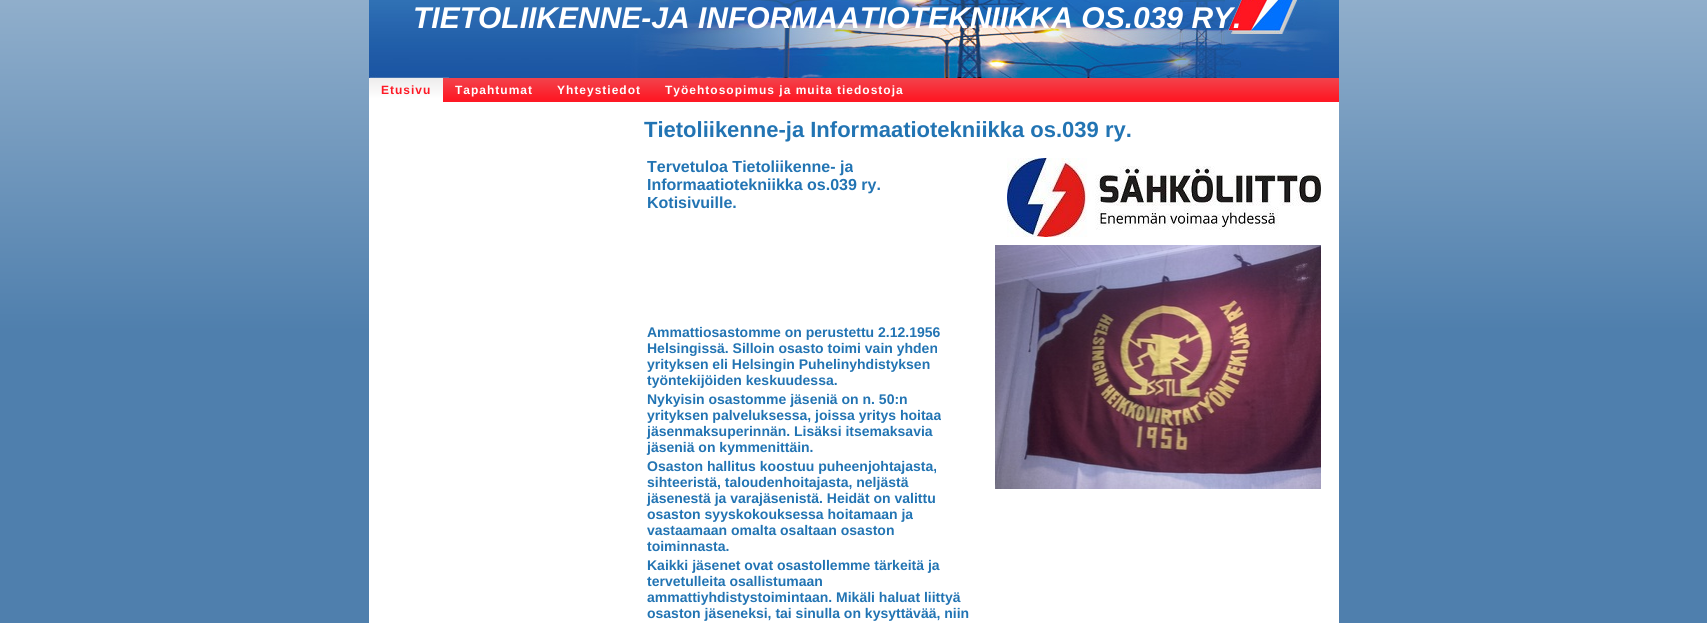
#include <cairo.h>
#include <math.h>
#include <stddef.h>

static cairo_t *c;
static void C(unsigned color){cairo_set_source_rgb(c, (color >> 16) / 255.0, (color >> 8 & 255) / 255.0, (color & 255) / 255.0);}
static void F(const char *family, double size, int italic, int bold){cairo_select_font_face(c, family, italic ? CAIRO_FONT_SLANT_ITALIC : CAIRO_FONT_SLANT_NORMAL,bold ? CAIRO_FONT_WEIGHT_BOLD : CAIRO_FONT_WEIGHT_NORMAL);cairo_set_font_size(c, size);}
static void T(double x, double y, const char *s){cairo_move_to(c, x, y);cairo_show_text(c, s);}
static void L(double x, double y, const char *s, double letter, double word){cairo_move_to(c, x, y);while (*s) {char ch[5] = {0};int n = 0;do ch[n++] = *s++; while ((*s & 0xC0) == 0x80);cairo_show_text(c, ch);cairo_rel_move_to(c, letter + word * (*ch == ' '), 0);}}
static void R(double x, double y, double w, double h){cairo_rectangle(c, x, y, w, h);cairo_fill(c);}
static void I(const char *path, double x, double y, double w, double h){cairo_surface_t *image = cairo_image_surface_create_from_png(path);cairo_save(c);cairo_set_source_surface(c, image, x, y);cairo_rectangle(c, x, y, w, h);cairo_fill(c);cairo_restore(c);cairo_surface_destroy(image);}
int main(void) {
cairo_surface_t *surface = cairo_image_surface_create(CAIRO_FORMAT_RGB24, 1707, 623);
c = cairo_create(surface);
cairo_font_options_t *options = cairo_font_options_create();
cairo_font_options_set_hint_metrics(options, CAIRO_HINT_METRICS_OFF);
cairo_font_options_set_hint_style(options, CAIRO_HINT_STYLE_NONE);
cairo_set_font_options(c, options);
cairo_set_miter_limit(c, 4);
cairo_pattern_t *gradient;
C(0xffffff);
cairo_paint(c);
gradient = cairo_pattern_create_linear(853,-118,854,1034);
cairo_pattern_add_color_stop_rgba(gradient,0,0.655,0.749,0.839,1);
cairo_pattern_add_color_stop_rgba(gradient,.39,0.31,0.498,0.678,1);
cairo_pattern_add_color_stop_rgba(gradient,1,0.31,0.498,0.678,1);
cairo_set_source(c,gradient);
cairo_pattern_destroy(gradient);
R(0,0,1707,623);
I("1.png",369,0,970,78);
F("Liberation Sans",30,1,1);
C(0xffffff);
T(413,28,"TIETOLIIKENNE-JA INFORMAATIOTEKNIIKKA OS.039 RY.");
gradient = cairo_pattern_create_linear(854,78,854,102);
cairo_pattern_add_color_stop_rgba(gradient,0,0.949,0.263,0.298,1);
cairo_pattern_add_color_stop_rgba(gradient,.87,0.996,0.098,0.145,1);
cairo_pattern_add_color_stop_rgba(gradient,1,0.996,0.098,0.145,1);
cairo_set_source(c,gradient);
cairo_pattern_destroy(gradient);
R(443,78,896,24);
gradient = cairo_pattern_create_linear(406,78,406,102);
cairo_pattern_add_color_stop_rgba(gradient,0,0.929,0.925,0.925,1);
cairo_pattern_add_color_stop_rgba(gradient,.87,1,1,1,1);
cairo_pattern_add_color_stop_rgba(gradient,1,1,1,1,1);
cairo_set_source(c,gradient);
cairo_pattern_destroy(gradient);
R(369,78,74,24);
F("Liberation Sans",12,0,1);
C(0xfe1925);
L(381,94,"Etusivu",1,0);
C(0xffffff);
L(455,94,"Tapahtumat",1,0);
L(557,94,"Yhteystiedot",1,0);
L(665,94,"Työehtosopimus ja muita tiedostoja",1,0);
R(369,102,970,521);
F("Liberation Sans",22,0,1);
C(0x2274b3);
T(644,137,"Tietoliikenne-ja Informaatiotekniikka os.039 ry.");
F("Liberation Sans",16,0,1);
T(647,172,"Tervetuloa Tietoliikenne- ja");
T(647,190,"Informaatiotekniikka os.039 ry.");
T(647,208,"Kotisivuille.");
F("Liberation Sans",14,0,1);
T(647,337,"Ammattiosastomme on perustettu 2.12.1956");
T(647,353,"Helsingissä. Silloin osasto toimi vain yhden");
T(647,369,"yrityksen eli Helsingin Puhelinyhdistyksen");
T(647,385,"työntekijöiden keskuudessa.");
T(647,404,"Nykyisin osastomme jäseniä on n. 50:n");
T(647,420,"yrityksen palveluksessa, joissa yritys hoitaa");
T(647,436,"jäsenmaksuperinnän. Lisäksi itsemaksavia");
T(647,452,"jäseniä on kymmenittäin.");
T(647,471,"Osaston hallitus koostuu puheenjohtajasta,");
T(647,487,"sihteeristä, taloudenhoitajasta, neljästä");
T(647,503,"jäsenestä ja varajäsenistä. Heidät on valittu");
T(647,519,"osaston syyskokouksessa hoitamaan ja");
T(647,535,"vastaamaan omalta osaltaan osaston");
T(647,551,"toiminnasta.");
T(647,570,"Kaikki jäsenet ovat osastollemme tärkeitä ja");
T(647,586,"tervetulleita osallistumaan");
T(647,602,"ammattiyhdistystoimintaan. Mikäli haluat liittyä");
T(647,618,"osaston jäseneksi, tai sinulla on kysyttävää, niin");
I("2.png",1007,158,314,79);
I("3.png",995,245,326,244);
cairo_surface_write_to_png(surface, "o.png");
cairo_font_options_destroy(options);
cairo_destroy(c);
cairo_surface_destroy(surface);
return 0;
}
